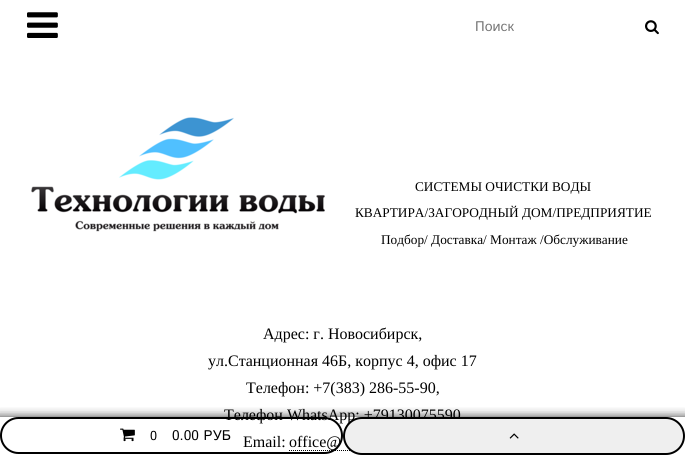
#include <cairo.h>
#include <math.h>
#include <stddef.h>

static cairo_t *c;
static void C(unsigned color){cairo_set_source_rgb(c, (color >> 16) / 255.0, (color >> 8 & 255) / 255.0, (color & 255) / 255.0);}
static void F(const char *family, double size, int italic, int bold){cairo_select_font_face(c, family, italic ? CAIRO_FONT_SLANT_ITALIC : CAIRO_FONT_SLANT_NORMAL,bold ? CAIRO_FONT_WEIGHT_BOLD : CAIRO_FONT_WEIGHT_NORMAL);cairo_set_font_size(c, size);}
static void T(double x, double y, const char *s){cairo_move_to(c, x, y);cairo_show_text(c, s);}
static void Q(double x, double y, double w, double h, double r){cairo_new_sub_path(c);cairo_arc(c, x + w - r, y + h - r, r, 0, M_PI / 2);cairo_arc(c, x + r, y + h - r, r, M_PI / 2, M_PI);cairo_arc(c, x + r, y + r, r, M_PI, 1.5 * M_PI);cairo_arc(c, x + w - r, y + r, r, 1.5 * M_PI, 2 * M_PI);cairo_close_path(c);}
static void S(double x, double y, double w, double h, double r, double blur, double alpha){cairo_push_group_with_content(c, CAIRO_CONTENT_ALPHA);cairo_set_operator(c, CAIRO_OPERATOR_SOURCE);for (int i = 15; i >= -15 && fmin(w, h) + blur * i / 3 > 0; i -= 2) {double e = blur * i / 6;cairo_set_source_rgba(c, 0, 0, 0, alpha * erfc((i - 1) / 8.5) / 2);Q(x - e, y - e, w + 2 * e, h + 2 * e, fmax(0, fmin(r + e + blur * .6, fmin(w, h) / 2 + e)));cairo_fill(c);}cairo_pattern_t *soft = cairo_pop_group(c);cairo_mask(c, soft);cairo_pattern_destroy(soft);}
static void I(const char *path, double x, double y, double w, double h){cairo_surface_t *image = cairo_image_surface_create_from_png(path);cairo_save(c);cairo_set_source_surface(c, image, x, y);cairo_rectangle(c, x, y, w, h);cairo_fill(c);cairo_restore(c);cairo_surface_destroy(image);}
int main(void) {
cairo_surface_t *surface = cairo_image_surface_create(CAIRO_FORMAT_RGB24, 685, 455);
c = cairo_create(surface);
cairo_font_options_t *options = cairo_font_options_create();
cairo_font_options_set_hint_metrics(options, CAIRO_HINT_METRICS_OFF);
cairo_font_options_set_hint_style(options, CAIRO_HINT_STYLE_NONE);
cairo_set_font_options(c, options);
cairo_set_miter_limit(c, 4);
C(0xffffff);
cairo_paint(c);
cairo_new_path(c);
cairo_move_to(c,289,450.5);
cairo_line_to(c,442,450.5);
C(0x000000);
cairo_set_line_width(c,1);
cairo_set_dash(c,(double[]){1,1},2,0);
cairo_stroke(c);
cairo_save(c);
cairo_rectangle(c,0,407,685,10);
cairo_clip(c);
C(0x333333);
S(-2,417,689,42,0,5,1);
cairo_restore(c);
Q(1,418,341,35,17.5);
cairo_set_line_width(c,2);
cairo_set_dash(c,NULL,0,0);
cairo_stroke(c);
I("1.png",120,428,15,14);
F("Istok Web",13,0,0);
T(150,440,"0");
F("Istok Web",14,0,0);
T(172,440,"0.00 РУБ");
F("Liberation Serif",16,0,0);
T(224,420,"Телефон WhatsApp: +79130075590");
C(0xefefef);
Q(344,418,340,36,18);
cairo_fill_preserve(c);
C(0x000000);
cairo_stroke(c);
I("2.png",509,433,10,6);
I("3.png",27,12,31,26);
F("Istok Web",14,0,0);
C(0x757575);
T(475,31,"Поиск");
I("4.png",645,20,14,15);
I("5.png",31,117,294,115);
F("Liberation Serif",13.3,0,0);
C(0x000000);
T(415,191,"СИСТЕМЫ ОЧИСТКИ ВОДЫ");
T(355,217,"КВАРТИРА/ЗАГОРОДНЫЙ ДОМ/ПРЕДПРИЯТИЕ");
T(381,244,"Подбор/ Доставка/ Монтаж /Обслуживание");
F("Liberation Serif",16,0,0);
T(263,339,"Адрес: г. Новосибирск,");
T(208,366,"ул.Станционная 46Б, корпус 4, офис 17");
T(246,393,"Телефон: +7(383) 286-55-90,");
T(243,447,"Email:");
T(289,447,"office@");
cairo_surface_write_to_png(surface, "o.png");
cairo_font_options_destroy(options);
cairo_destroy(c);
cairo_surface_destroy(surface);
return 0;
}
